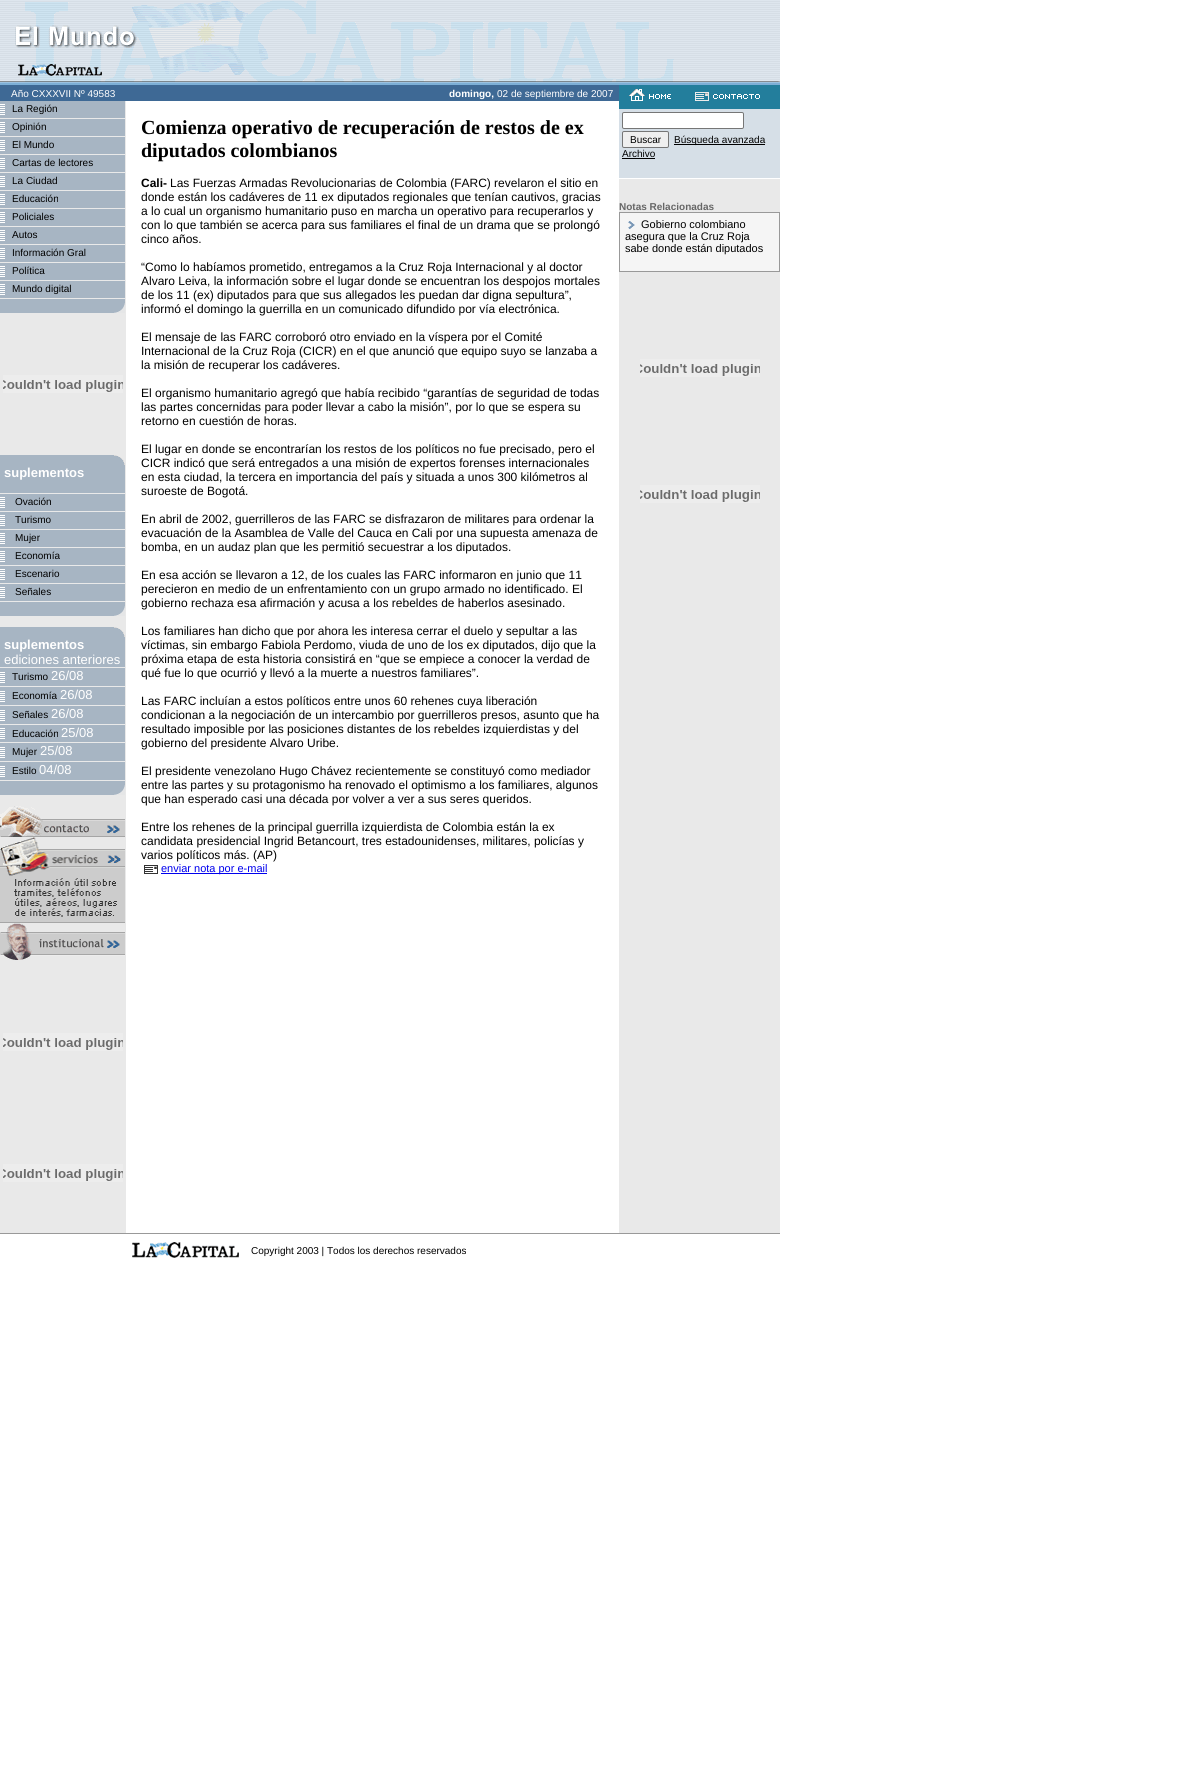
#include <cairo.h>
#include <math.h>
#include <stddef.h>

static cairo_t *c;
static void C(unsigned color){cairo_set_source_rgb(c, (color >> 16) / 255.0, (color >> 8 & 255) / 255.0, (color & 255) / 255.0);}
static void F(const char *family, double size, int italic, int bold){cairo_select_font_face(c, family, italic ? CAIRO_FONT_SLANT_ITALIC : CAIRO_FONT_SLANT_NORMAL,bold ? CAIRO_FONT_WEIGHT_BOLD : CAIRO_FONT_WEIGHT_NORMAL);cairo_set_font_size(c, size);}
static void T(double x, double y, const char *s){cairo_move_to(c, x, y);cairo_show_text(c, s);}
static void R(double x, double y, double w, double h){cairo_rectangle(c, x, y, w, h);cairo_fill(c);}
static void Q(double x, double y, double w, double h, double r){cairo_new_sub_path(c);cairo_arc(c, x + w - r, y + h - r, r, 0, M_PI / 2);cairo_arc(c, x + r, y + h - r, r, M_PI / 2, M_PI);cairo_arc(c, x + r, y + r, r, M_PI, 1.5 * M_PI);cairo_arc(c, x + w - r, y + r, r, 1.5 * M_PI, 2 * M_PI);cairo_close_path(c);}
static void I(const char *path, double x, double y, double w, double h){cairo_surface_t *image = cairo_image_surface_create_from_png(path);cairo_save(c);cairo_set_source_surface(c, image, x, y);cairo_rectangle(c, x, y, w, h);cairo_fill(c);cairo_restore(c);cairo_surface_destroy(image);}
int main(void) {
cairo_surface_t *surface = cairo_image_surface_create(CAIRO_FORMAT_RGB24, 1195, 1779);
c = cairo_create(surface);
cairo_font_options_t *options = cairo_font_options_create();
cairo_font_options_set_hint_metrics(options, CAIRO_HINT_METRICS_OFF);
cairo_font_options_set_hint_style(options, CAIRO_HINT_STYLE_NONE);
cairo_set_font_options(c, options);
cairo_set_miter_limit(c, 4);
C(0xffffff);
cairo_paint(c);
I("1.png",0,0,780,85);
C(0xe9e9e9);
R(0,101,126,1132);
C(0x3e6995);
R(0,85,619,16);
F("Liberation Sans",10,0,0);
C(0xffffff);
T(11,97,"Año CXXXVII Nº 49583");
C(0xa7b5c3);
R(0,101,125,212);
I("2.png",0,104,5,11);
C(0x000000);
T(12,112,"La Región");
C(0xe9e9e9);
R(0,118,125,1);
I("2.png",0,122,5,11);
C(0x000000);
T(12,130,"Opinión");
C(0xe9e9e9);
R(0,136,125,1);
I("2.png",0,140,5,11);
C(0x000000);
T(12,148,"El Mundo");
C(0xe9e9e9);
R(0,154,125,1);
I("2.png",0,158,5,11);
C(0x000000);
T(12,166,"Cartas de lectores");
C(0xe9e9e9);
R(0,172,125,1);
I("2.png",0,176,5,11);
C(0x000000);
T(12,184,"La Ciudad");
C(0xe9e9e9);
R(0,190,125,1);
I("2.png",0,194,5,11);
C(0x000000);
T(12,202,"Educación");
C(0xe9e9e9);
R(0,208,125,1);
I("2.png",0,212,5,11);
C(0x000000);
T(12,220,"Policiales");
C(0xe9e9e9);
R(0,226,125,1);
I("2.png",0,230,5,11);
C(0x000000);
T(12,238,"Autos");
C(0xe9e9e9);
R(0,244,125,1);
I("2.png",0,248,5,11);
C(0x000000);
T(12,256,"Información Gral");
C(0xe9e9e9);
R(0,262,125,1);
I("2.png",0,266,5,11);
C(0x000000);
T(12,274,"Política");
C(0xe9e9e9);
R(0,280,125,1);
I("2.png",0,284,5,11);
C(0x000000);
T(12,292,"Mundo digital");
C(0xe9e9e9);
R(0,298,125,1);
I("3.png",114,303,11,10);
I("4.png",3,375,120,18);
C(0xa7b5c3);
R(0,455,125,161);
I("5.png",114,455,11,10);
F("Liberation Sans",13,0,1);
C(0xffffff);
T(4,477,"suplementos");
C(0xe9e9e9);
R(0,493,125,1);
I("2.png",0,497,5,11);
F("Liberation Sans",10,0,0);
C(0x000000);
T(15,505,"Ovación");
C(0xe9e9e9);
R(0,511,125,1);
I("2.png",0,515,5,11);
C(0x000000);
T(15,523,"Turismo");
C(0xe9e9e9);
R(0,529,125,1);
I("2.png",0,533,5,11);
C(0x000000);
T(15,541,"Mujer");
C(0xe9e9e9);
R(0,547,125,1);
I("2.png",0,551,5,11);
C(0x000000);
T(15,559,"Economía");
C(0xe9e9e9);
R(0,565,125,1);
I("2.png",0,569,5,11);
C(0x000000);
T(15,577,"Escenario");
C(0xe9e9e9);
R(0,583,125,1);
I("2.png",0,587,5,11);
C(0x000000);
T(15,595,"Señales");
C(0xe9e9e9);
R(0,601,125,1);
I("3.png",114,606,11,10);
C(0xa7b5c3);
R(0,627,125,168);
I("5.png",114,627,11,10);
F("Liberation Sans",13,0,1);
C(0xffffff);
T(4,649,"suplementos");
F("Liberation Sans",13,0,0);
T(4,664,"ediciones anteriores");
C(0xe9e9e9);
R(0,667,125,1);
I("2.png",0,672,5,11);
F("Liberation Sans",10,0,0);
C(0x000000);
T(12,680,"Turismo");
F("Liberation Sans",13,0,0);
C(0xffffff);
T(51,680,"26/08");
C(0xe9e9e9);
R(0,686,125,1);
I("2.png",0,691,5,11);
F("Liberation Sans",10,0,0);
C(0x000000);
T(12,699,"Economía");
F("Liberation Sans",13,0,0);
C(0xffffff);
T(60,699,"26/08");
C(0xe9e9e9);
R(0,705,125,1);
I("2.png",0,710,5,11);
F("Liberation Sans",10,0,0);
C(0x000000);
T(12,718,"Señales");
F("Liberation Sans",13,0,0);
C(0xffffff);
T(51,718,"26/08");
C(0xe9e9e9);
R(0,724,125,1);
I("2.png",0,728,5,11);
F("Liberation Sans",10,0,0);
C(0x000000);
T(12,737,"Educación");
F("Liberation Sans",13,0,0);
C(0xffffff);
T(61,737,"25/08");
C(0xe9e9e9);
R(0,742,125,1);
I("2.png",0,747,5,11);
F("Liberation Sans",10,0,0);
C(0x000000);
T(12,755,"Mujer");
F("Liberation Sans",13,0,0);
C(0xffffff);
T(40,755,"25/08");
C(0xe9e9e9);
R(0,761,125,1);
I("2.png",0,766,5,11);
F("Liberation Sans",10,0,0);
C(0x000000);
T(12,774,"Estilo");
F("Liberation Sans",13,0,0);
C(0xffffff);
T(39,774,"04/08");
C(0xe9e9e9);
R(0,780,125,1);
I("3.png",114,785,11,10);
I("6.png",0,806,125,31);
I("7.png",0,837,125,86);
I("8.png",0,923,125,37);
I("4.png",3,1033,120,18);
I("4.png",3,1164,120,18);
F("Liberation Sans",10,0,1);
C(0xffffff);
T(449,97,"domingo,");
F("Liberation Sans",10,0,0);
T(497,97,"02 de septiembre de 2007");
F("Liberation Serif",20,0,1);
C(0x000000);
T(141,134,"Comienza operativo de recuperación de restos de ex");
T(141,157,"diputados colombianos");
F("Liberation Sans",12,0,1);
T(141,187,"Cali-");
F("Liberation Sans",12,0,0);
T(170,187,"Las Fuerzas Armadas Revolucionarias de Colombia (FARC) revelaron el sitio en");
T(141,201,"donde están los cadáveres de 11 ex diputados regionales que tenían cautivos, gracias");
T(141,215,"a lo cual un organismo humanitario puso en marcha un operativo para recuperarlos y");
T(141,229,"con lo que también se acerca para sus familiares el final de un drama que se prolongó");
T(141,243,"cinco años.");
T(141,271,"“Como lo habíamos prometido, entregamos a la Cruz Roja Internacional y al doctor");
T(141,285,"Alvaro Leiva, la información sobre el lugar donde se encuentran los despojos mortales");
T(141,299,"de los 11 (ex) diputados para que sus allegados les puedan dar digna sepultura”,");
T(141,313,"informó el domingo la guerrilla en un comunicado difundido por vía electrónica.");
T(141,341,"El mensaje de las FARC corroboró otro enviado en la víspera por el Comité");
T(141,355,"Internacional de la Cruz Roja (CICR) en el que anunció que equipo suyo se lanzaba a");
T(141,369,"la misión de recuperar los cadáveres.");
T(141,397,"El organismo humanitario agregó que había recibido “garantías de seguridad de todas");
T(141,411,"las partes concernidas para poder llevar a cabo la misión”, por lo que se espera su");
T(141,425,"retorno en cuestión de horas.");
T(141,453,"El lugar en donde se encontrarían los restos de los políticos no fue precisado, pero el");
T(141,467,"CICR indicó que será entregados a una misión de expertos forenses internacionales");
T(141,481,"en esta ciudad, la tercera en importancia del país y situada a unos 300 kilómetros al");
T(141,495,"suroeste de Bogotá.");
T(141,523,"En abril de 2002, guerrilleros de las FARC se disfrazaron de militares para ordenar la");
T(141,537,"evacuación de la Asamblea de Valle del Cauca en Cali por una supuesta amenaza de");
T(141,551,"bomba, en un audaz plan que les permitió secuestrar a los diputados.");
T(141,579,"En esa acción se llevaron a 12, de los cuales las FARC informaron en junio que 11");
T(141,593,"perecieron en medio de un enfrentamiento con un grupo armado no identificado. El");
T(141,607,"gobierno rechaza esa afirmación y acusa a los rebeldes de haberlos asesinado.");
T(141,635,"Los familiares han dicho que por ahora les interesa cerrar el duelo y sepultar a las");
T(141,649,"víctimas, sin embargo Fabiola Perdomo, viuda de uno de los ex diputados, dijo que la");
T(141,663,"próxima etapa de esta historia consistirá en “que se empiece a conocer la verdad de");
T(141,677,"qué fue lo que ocurrió y llevó a la muerte a nuestros familiares”.");
T(141,705,"Las FARC incluían a estos políticos entre unos 60 rehenes cuya liberación");
T(141,719,"condicionan a la negociación de un intercambio por guerrilleros presos, asunto que ha");
T(141,733,"resultado imposible por las posiciones distantes de los rebeldes izquierdistas y del");
T(141,747,"gobierno del presidente Alvaro Uribe.");
T(141,775,"El presidente venezolano Hugo Chávez recientemente se constituyó como mediador");
T(141,789,"entre las partes y su protagonismo ha renovado el optimismo a los familiares, algunos");
T(141,803,"que han esperado casi una década por volver a ver a sus seres queridos.");
T(141,831,"Entre los rehenes de la principal guerrilla izquierdista de Colombia están la ex");
T(141,845,"candidata presidencial Ingrid Betancourt, tres estadounidenses, militares, policías y");
T(141,859,"varios políticos más. (AP)");
I("9.png",144,865,14,9);
C(0x0000ee);
R(161,873,106,1);
F("Liberation Sans",11,0,0);
T(161,872,"enviar nota por e-mail");
C(0xe9e9e9);
R(619,179,161,1054);
C(0x237e9c);
R(619,85,161,24);
I("10.png",629,89,42,12);
I("11.png",695,92,65,9);
C(0xd6dfe7);
R(619,109,161,69);
C(0xffffff);
Q(622.5,112.5,121,16,1.5);
cairo_fill_preserve(c);
C(0x767676);
cairo_set_line_width(c,1);
cairo_stroke(c);
C(0xefefef);
Q(622.5,131.5,46,16,1.5);
cairo_fill_preserve(c);
C(0x767676);
cairo_stroke(c);
F("Liberation Sans",10,0,0);
C(0x000000);
T(630,143,"Buscar");
R(674,144,91,1);
T(674,143,"Búsqueda avanzada");
T(622,157,"Archivo");
R(622,158,33,1);
F("Liberation Sans",10,0,1);
C(0x666666);
T(619,210,"Notas Relacionadas");
C(0xf5f5f5);
cairo_rectangle(c,619.5,212.5,160,59);
cairo_fill_preserve(c);
C(0x999999);
cairo_stroke(c);
I("12.png",628,221,7,9);
F("Liberation Sans",11,0,0);
C(0x000000);
T(641,228,"Gobierno colombiano");
T(625,240,"asegura que la Cruz Roja");
T(625,252,"sabe donde están diputados");
I("13.png",640,359,120,18);
I("13.png",640,485,120,18);
C(0x999999);
R(0,1233,780,1);
I("14.png",132,1242,107,16);
F("Liberation Sans",10,0,0);
C(0x000000);
T(251,1254,"Copyright 2003 | Todos los derechos reservados");
cairo_surface_write_to_png(surface, "o.png");
cairo_font_options_destroy(options);
cairo_destroy(c);
cairo_surface_destroy(surface);
return 0;
}
